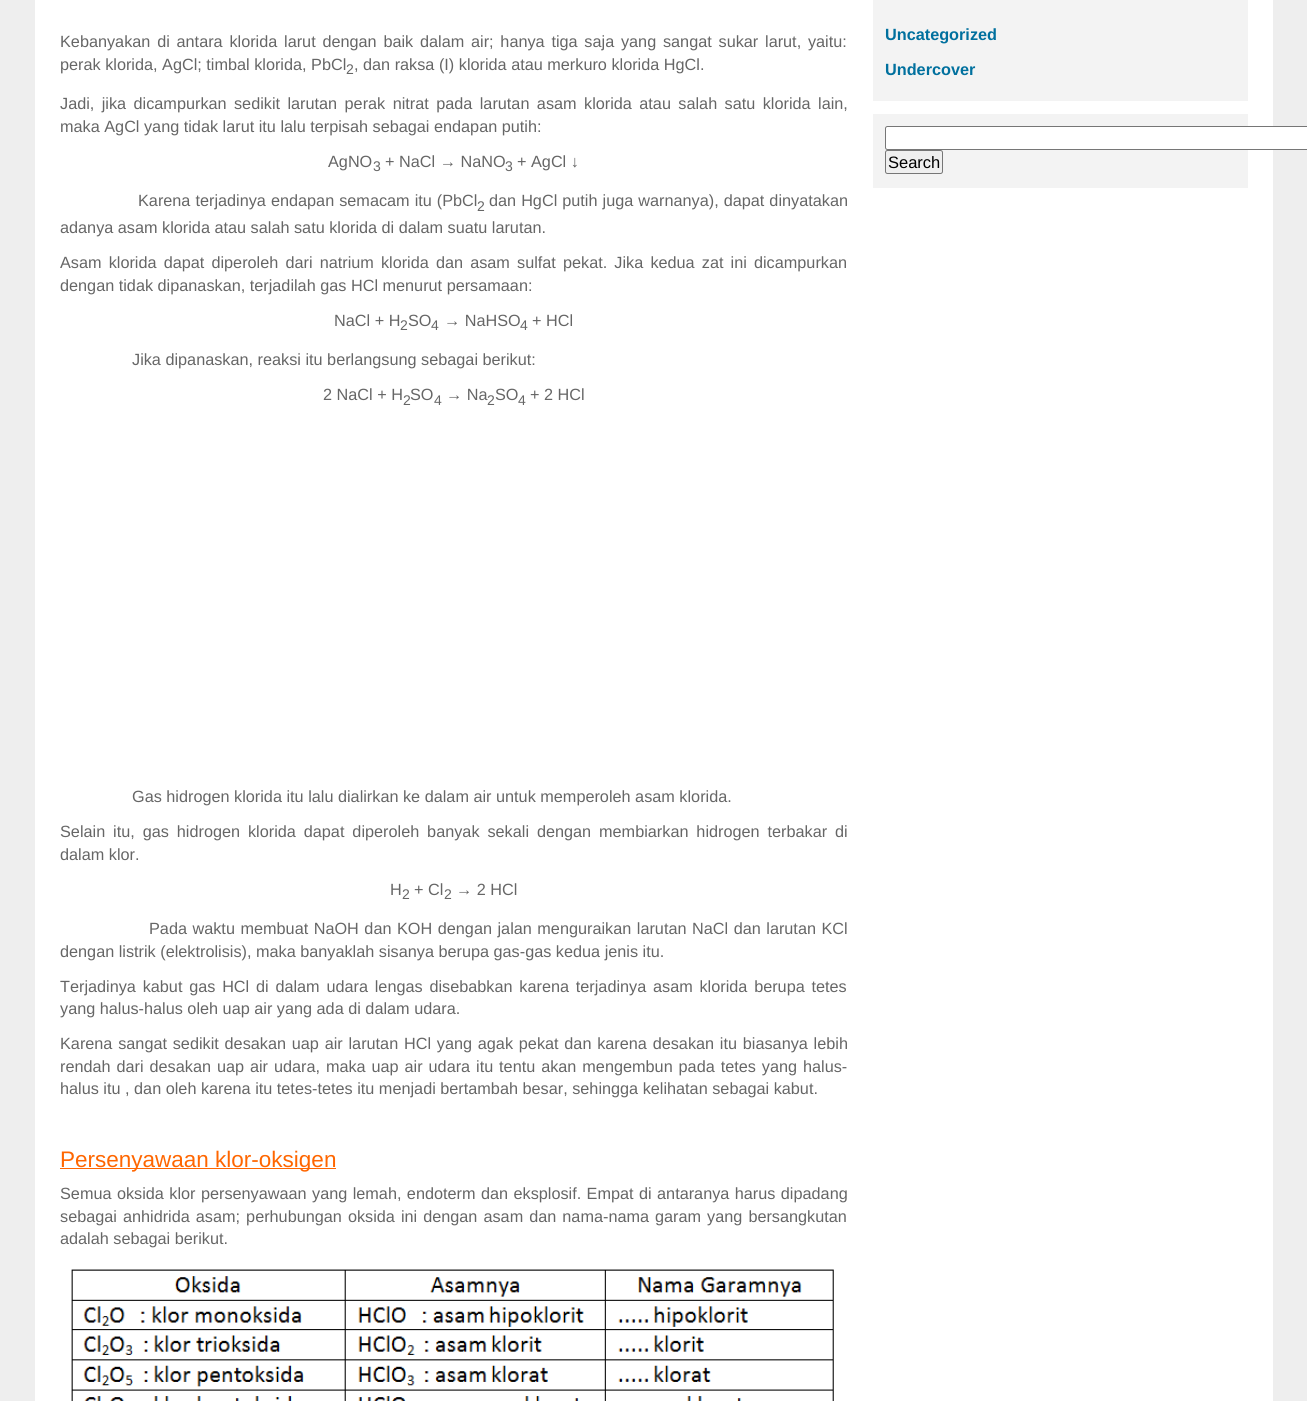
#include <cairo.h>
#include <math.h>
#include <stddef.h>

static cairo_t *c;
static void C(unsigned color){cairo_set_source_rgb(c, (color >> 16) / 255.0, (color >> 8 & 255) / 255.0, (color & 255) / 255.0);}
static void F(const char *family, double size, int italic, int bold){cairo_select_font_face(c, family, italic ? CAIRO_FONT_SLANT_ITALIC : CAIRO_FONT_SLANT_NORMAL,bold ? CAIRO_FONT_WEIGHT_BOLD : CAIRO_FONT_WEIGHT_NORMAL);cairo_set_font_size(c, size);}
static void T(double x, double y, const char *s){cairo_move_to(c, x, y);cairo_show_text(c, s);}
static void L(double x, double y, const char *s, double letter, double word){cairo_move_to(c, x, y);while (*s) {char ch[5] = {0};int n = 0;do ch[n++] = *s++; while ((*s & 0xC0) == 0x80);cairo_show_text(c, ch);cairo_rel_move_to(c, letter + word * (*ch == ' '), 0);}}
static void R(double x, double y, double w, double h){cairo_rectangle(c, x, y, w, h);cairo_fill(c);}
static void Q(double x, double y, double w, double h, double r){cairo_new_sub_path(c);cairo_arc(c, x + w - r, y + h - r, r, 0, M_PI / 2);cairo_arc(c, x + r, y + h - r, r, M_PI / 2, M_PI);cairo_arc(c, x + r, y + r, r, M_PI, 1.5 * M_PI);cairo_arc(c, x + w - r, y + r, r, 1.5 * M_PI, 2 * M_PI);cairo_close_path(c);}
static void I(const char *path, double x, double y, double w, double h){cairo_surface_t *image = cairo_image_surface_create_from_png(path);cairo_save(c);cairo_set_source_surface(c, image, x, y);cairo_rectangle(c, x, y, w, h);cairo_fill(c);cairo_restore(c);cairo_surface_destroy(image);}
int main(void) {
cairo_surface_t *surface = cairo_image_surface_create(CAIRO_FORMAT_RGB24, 1307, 1401);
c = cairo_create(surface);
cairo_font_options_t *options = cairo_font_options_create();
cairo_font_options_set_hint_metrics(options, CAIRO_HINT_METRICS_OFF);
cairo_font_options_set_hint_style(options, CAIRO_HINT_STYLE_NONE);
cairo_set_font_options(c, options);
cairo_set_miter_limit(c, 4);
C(0xeeeeee);
cairo_paint(c);
C(0xffffff);
R(35,0,1238,1401);
F("Liberation Sans",16.25,0,0);
C(0x666666);
L(60,47,"Kebanyakan di antara klorida larut dengan baik dalam air; hanya tiga saja yang sangat sukar larut, yaitu:",0,2.25);
T(60,70,"perak klorida, AgCl; timbal klorida, PbCl");
F("Liberation Sans",14,0,0);
T(346,74,"2");
F("Liberation Sans",16.25,0,0);
T(354,70,", dan raksa (I) klorida atau merkuro klorida HgCl.");
L(60,109,"Jadi, jika dicampurkan sedikit larutan perak nitrat pada larutan asam klorida atau salah satu klorida lain,",0,2.9);
T(60,132,"maka AgCl yang tidak larut itu lalu terpisah sebagai endapan putih:");
T(328,167,"AgNO");
F("Liberation Sans",14,0,0);
T(373,171,"3");
F("Liberation Sans",16.25,0,0);
T(385,167,"+ NaCl → NaNO");
F("Liberation Sans",14,0,0);
T(505,171,"3");
F("Liberation Sans",16.25,0,0);
T(517,167,"+ AgCl ↓");
L(138,206,"Karena terjadinya endapan semacam itu (PbCl",0,.5);
F("Liberation Sans",14,0,0);
T(477,211,"2");
F("Liberation Sans",16.25,0,0);
L(489,206,"dan HgCl putih juga warnanya), dapat dinyatakan",0,.5);
T(60,233,"adanya asam klorida atau salah satu klorida di dalam suatu larutan.");
L(60,268,"Asam klorida dapat diperoleh dari natrium klorida dan asam sulfat pekat. Jika kedua zat ini dicampurkan",0,2.6);
T(60,291,"dengan tidak dipanaskan, terjadilah gas HCl menurut persamaan:");
T(334,326,"NaCl + H");
F("Liberation Sans",14,0,0);
T(400,330,"2");
F("Liberation Sans",16.25,0,0);
T(408,326,"SO");
F("Liberation Sans",14,0,0);
T(431,330,"4");
F("Liberation Sans",16.25,0,0);
T(444,326,"→ NaHSO");
F("Liberation Sans",14,0,0);
T(520,330,"4");
F("Liberation Sans",16.25,0,0);
T(532,326,"+ HCl");
T(132,365,"Jika dipanaskan, reaksi itu berlangsung sebagai berikut:");
T(323,400,"2 NaCl + H");
F("Liberation Sans",14,0,0);
T(403,405,"2");
F("Liberation Sans",16.25,0,0);
T(410,400,"SO");
F("Liberation Sans",14,0,0);
T(434,405,"4");
F("Liberation Sans",16.25,0,0);
T(446,400,"→ Na");
F("Liberation Sans",14,0,0);
T(487,405,"2");
F("Liberation Sans",16.25,0,0);
T(495,400,"SO");
F("Liberation Sans",14,0,0);
T(518,405,"4");
F("Liberation Sans",16.25,0,0);
T(530,400,"+ 2 HCl");
T(132,802,"Gas hidrogen klorida itu lalu dialirkan ke dalam air untuk memperoleh asam klorida.");
L(60,837,"Selain itu, gas hidrogen klorida dapat diperoleh banyak sekali dengan membiarkan hidrogen terbakar di",0,3.4);
T(60,860,"dalam klor.");
T(390,895,"H");
F("Liberation Sans",14,0,0);
T(402,899,"2");
F("Liberation Sans",16.25,0,0);
T(414,895,"+ Cl");
F("Liberation Sans",14,0,0);
T(444,899,"2");
F("Liberation Sans",16.25,0,0);
T(456,895,"→ 2 HCl");
L(149,934,"Pada waktu membuat NaOH dan KOH dengan jalan menguraikan larutan NaCl dan larutan KCl",0,1);
T(60,957,"dengan listrik (elektrolisis), maka banyaklah sisanya berupa gas-gas kedua jenis itu.");
L(60,992,"Terjadinya kabut gas HCl di dalam udara lengas disebabkan karena terjadinya asam klorida berupa tetes",0,2.25);
T(60,1014,"yang halus-halus oleh uap air yang ada di dalam udara.");
L(60,1049,"Karena sangat sedikit desakan uap air larutan HCl yang agak pekat dan karena desakan itu biasanya lebih",0,1.25);
L(60,1072,"rendah dari desakan uap air udara, maka uap air udara itu tentu akan mengembun pada tetes yang halus-",0,1.4);
T(60,1094,"halus itu , dan oleh karena itu tetes-tetes itu menjadi bertambah besar, sehingga kelihatan sebagai kabut.");
C(0xff6600);
R(60,1168,276,1);
F("Liberation Sans",22.5,0,0);
T(60,1167,"Persenyawaan klor-oksigen");
F("Liberation Sans",16.25,0,0);
C(0x666666);
L(60,1199,"Semua oksida klor persenyawaan yang lemah, endoterm dan eksplosif. Empat di antaranya harus dipadang",0,.9);
L(60,1222,"sebagai anhidrida asam; perhubungan oksida ini dengan asam dan nama-nama garam yang bersangkutan",0,1.5);
T(60,1244,"adalah sebagai berikut.");
I("1.png",71,1269,763,132);
C(0xf3f3f3);
R(873,0,375,101);
F("Liberation Sans",16.25,0,1);
C(0x00709e);
T(885,40,"Uncategorized");
T(885,75,"Undercover");
C(0xf3f3f3);
R(873,114,375,74);
C(0xffffff);
Q(885.5,126.5,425,23,2);
cairo_fill_preserve(c);
C(0x767676);
cairo_set_line_width(c,1);
cairo_stroke(c);
C(0xefefef);
Q(885.5,150.5,57,23,2);
cairo_fill_preserve(c);
C(0x767676);
cairo_stroke(c);
F("Liberation Sans",16.5,0,0);
C(0x000000);
T(888,168,"Search");
cairo_surface_write_to_png(surface, "o.png");
cairo_font_options_destroy(options);
cairo_destroy(c);
cairo_surface_destroy(surface);
return 0;
}
